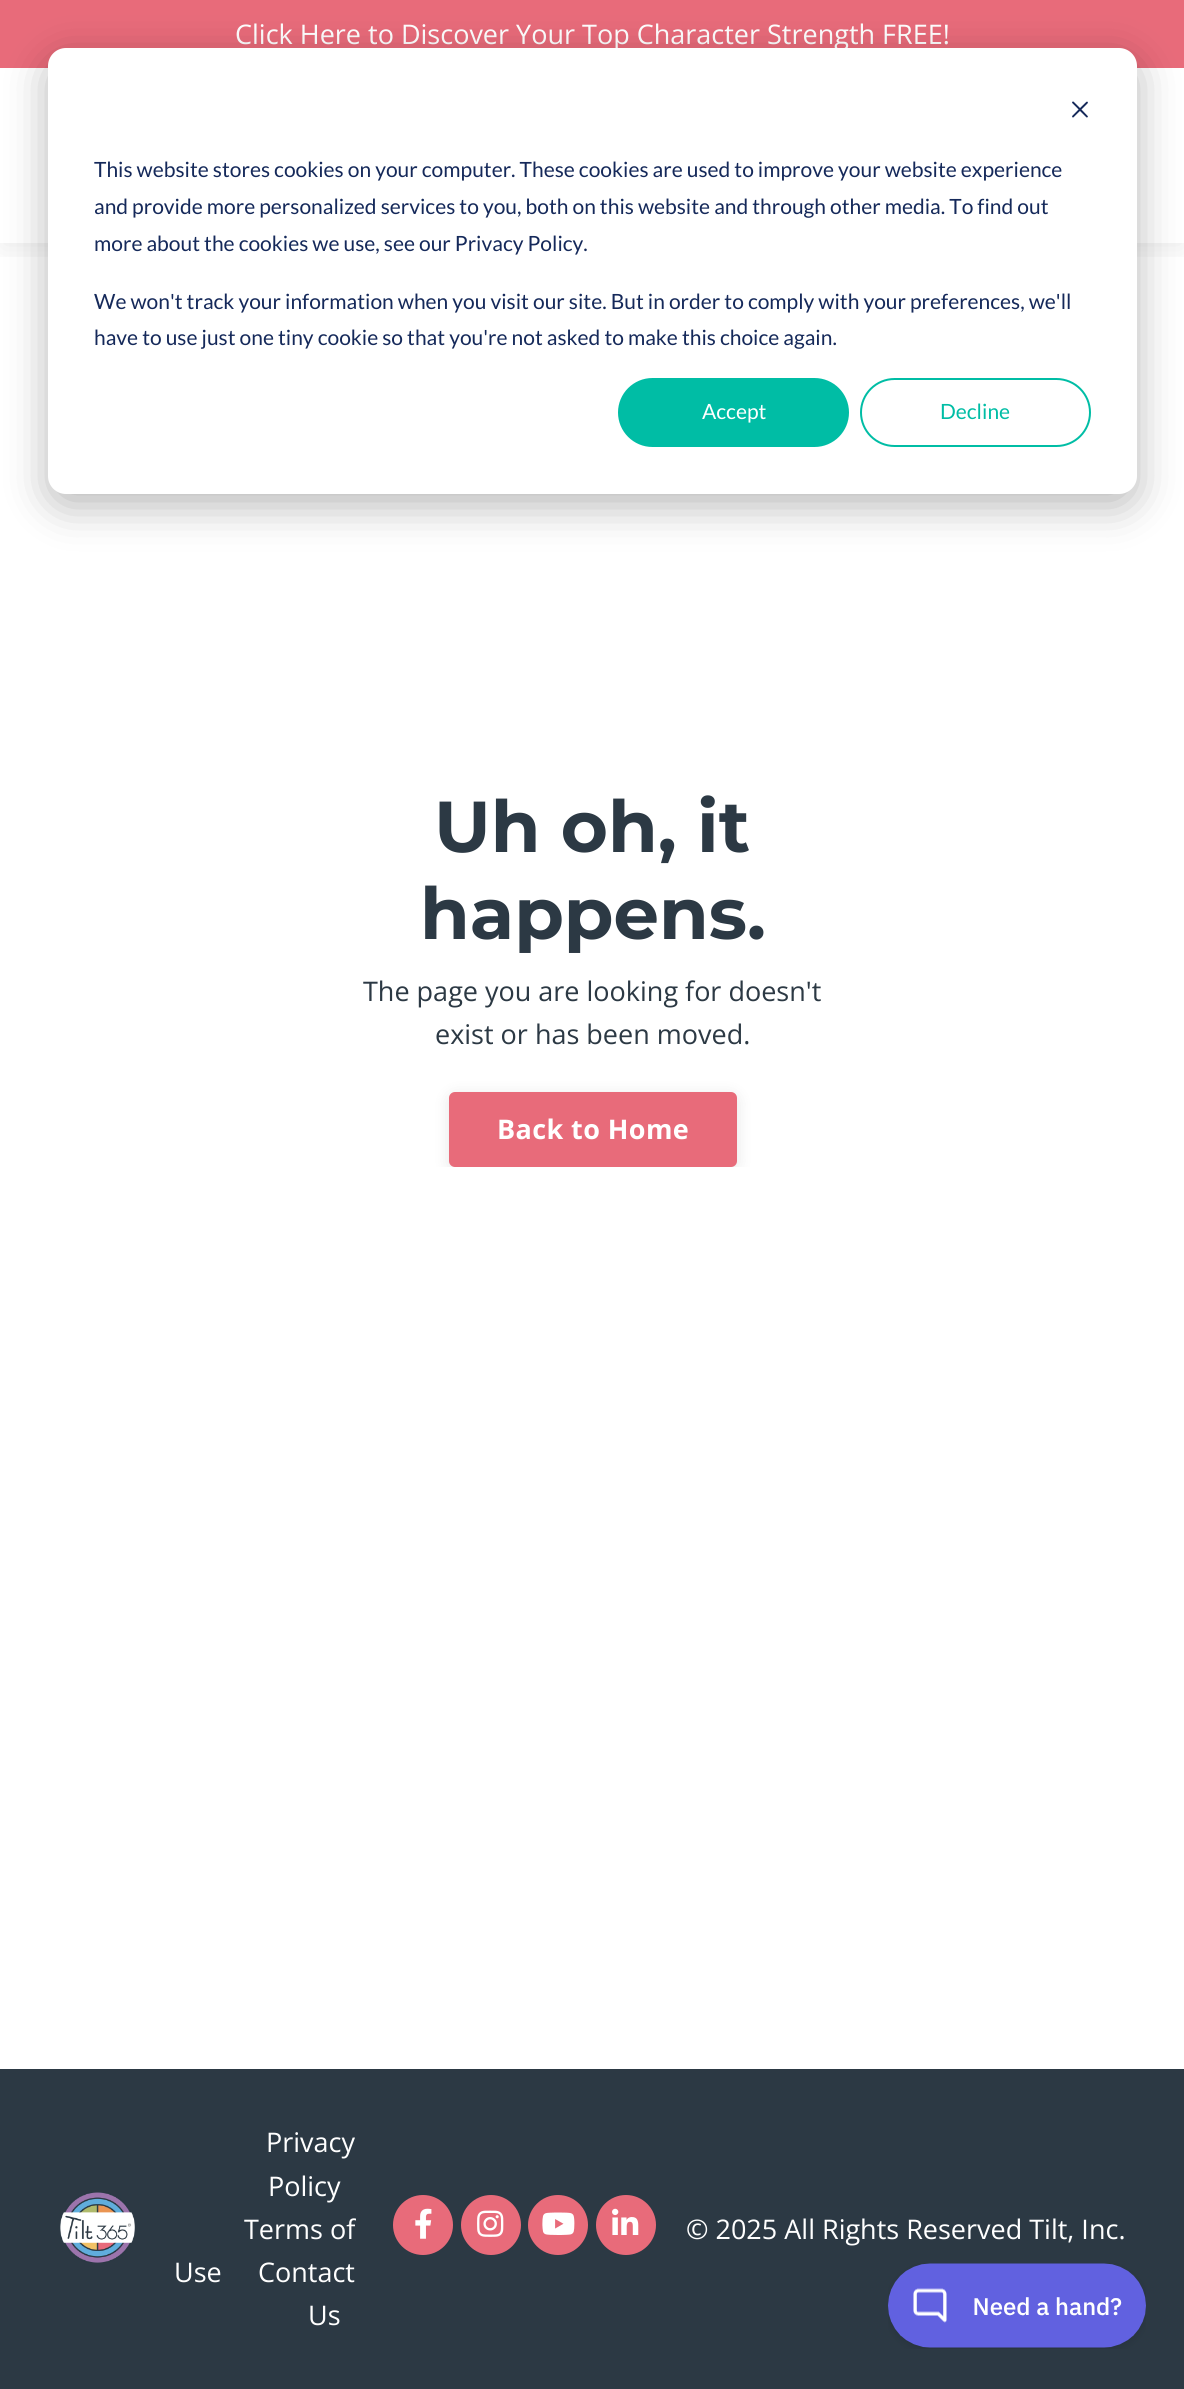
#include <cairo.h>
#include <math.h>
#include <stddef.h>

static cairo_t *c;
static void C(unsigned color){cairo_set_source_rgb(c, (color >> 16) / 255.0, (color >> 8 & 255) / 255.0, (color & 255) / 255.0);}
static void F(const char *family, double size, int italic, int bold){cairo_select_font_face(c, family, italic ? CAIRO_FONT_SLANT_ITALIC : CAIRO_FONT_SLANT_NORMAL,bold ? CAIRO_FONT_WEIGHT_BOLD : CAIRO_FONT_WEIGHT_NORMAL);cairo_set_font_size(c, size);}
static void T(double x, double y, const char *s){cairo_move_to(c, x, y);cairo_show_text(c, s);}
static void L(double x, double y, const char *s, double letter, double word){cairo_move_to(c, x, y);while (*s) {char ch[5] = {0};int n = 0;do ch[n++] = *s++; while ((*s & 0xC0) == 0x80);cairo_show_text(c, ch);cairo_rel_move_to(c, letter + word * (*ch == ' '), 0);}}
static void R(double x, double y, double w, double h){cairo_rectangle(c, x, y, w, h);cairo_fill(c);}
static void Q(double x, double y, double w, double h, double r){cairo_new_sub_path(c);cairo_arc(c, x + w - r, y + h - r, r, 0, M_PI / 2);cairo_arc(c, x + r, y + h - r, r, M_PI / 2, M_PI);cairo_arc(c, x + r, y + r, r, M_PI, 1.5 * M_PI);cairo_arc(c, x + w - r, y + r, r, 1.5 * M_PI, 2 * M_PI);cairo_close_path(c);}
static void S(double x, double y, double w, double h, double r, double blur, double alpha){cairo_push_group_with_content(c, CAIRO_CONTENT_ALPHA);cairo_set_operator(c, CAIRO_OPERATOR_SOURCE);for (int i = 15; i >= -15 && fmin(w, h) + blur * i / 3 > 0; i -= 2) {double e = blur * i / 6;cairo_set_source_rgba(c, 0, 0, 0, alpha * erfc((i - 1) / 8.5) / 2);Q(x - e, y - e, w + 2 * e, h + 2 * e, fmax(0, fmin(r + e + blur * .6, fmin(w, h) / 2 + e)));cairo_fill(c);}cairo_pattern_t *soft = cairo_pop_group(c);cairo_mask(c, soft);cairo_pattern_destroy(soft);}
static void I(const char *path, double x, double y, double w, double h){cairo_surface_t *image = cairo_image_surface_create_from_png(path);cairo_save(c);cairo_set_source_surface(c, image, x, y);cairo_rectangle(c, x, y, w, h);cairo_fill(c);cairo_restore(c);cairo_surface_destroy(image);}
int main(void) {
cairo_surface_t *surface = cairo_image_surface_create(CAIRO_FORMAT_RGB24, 1184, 2389);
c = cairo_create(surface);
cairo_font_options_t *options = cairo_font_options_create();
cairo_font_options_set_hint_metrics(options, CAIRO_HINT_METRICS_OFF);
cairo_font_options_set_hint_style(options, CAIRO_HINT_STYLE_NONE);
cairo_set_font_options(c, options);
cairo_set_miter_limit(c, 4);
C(0xffffff);
cairo_paint(c);
cairo_save(c);
cairo_rectangle(c,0,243,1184,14);
cairo_clip(c);
C(0x000000);
S(0,6,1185,243,0,15,.07);
cairo_restore(c);
C(0xe86b7a);
R(0,0,1184,68);
F("Open Sans",27,0,0);
C(0xffffff);
T(235,44,"Click Here to Discover Your Top Character Strength FREE!");
F("Montserrat",72,0,1);
C(0x2c3944);
T(434,852,"Uh oh, it");
T(420,939,"happens.");
F("Open Sans",27,0,0);
T(363,1001,"The page you are looking for doesn't");
T(435,1044,"exist or has been moved.");
cairo_save(c);
Q(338,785,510,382,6);
cairo_clip(c);
C(0x000000);
S(449,1095,288,75,6,7.5,.1);
cairo_restore(c);
C(0xe86b7a);
Q(450.5,1093.5,285,72,4.5);
cairo_fill_preserve(c);
cairo_set_line_width(c,3);
cairo_stroke(c);
F("Open Sans",27,0,1);
C(0xffffff);
L(497,1139,"Back to Home",.4,0);
C(0x2c3944);
R(0,2069,1184,320);
I("1.png",60,2192,75,71);
F("Open Sans",27,0,0);
C(0xffffff);
T(266,2152,"Privacy");
T(268,2196,"Policy");
cairo_save(c);
Q(173,2121,183,216,6);
cairo_clip(c);
T(244,2239,"Terms of");
cairo_restore(c);
T(174,2282,"Use");
T(258,2282,"Contact");
T(308,2325,"Us");
C(0xe86b7a);
cairo_new_path(c);
cairo_arc(c,423,2225,30,0,2 * M_PI);
cairo_fill(c);
I("2.png",415,2208,17,31);
cairo_arc(c,491,2225,30,0,2 * M_PI);
cairo_fill(c);
I("3.png",477,2210,27,27);
cairo_arc(c,558,2225,30,0,2 * M_PI);
cairo_fill(c);
I("4.png",542,2212,33,23);
cairo_arc(c,626,2225,30,0,2 * M_PI);
cairo_fill(c);
I("5.png",612,2208,27,27);
C(0xffffff);
T(686,2239,"© 2025 All Rights Reserved Tilt, Inc.");
C(0x000000);
S(48,60,1089,446,18,21,.28);
C(0xffffff);
Q(48,48,1089,446,18);
cairo_fill(c);
I("6.png",1072,101,16,17);
F("Lato",21,0,0);
C(0x15295a);
T(94,177,"This website stores cookies on your computer. These cookies are used to improve your website experience");
T(94,214,"and provide more personalized services to you, both on this website and through other media. To find out");
T(94,251,"more about the cookies we use, see our Privacy Policy.");
T(94,309,"We won't track your information when you visit our site. But in order to comply with your preferences, we'll");
T(94,345,"have to use just one tiny cookie so that you're not asked to make this choice again.");
C(0x00bda5);
Q(619,379,229,67,33.5);
cairo_fill_preserve(c);
cairo_set_line_width(c,2);
cairo_stroke(c);
C(0xffffff);
T(702,419,"Accept");
Q(861,379,229,67,33.5);
C(0x00bda5);
cairo_stroke(c);
T(940,419,"Decline");
I("7.png",888,2263,258,86);
cairo_surface_write_to_png(surface, "o.png");
cairo_font_options_destroy(options);
cairo_destroy(c);
cairo_surface_destroy(surface);
return 0;
}
